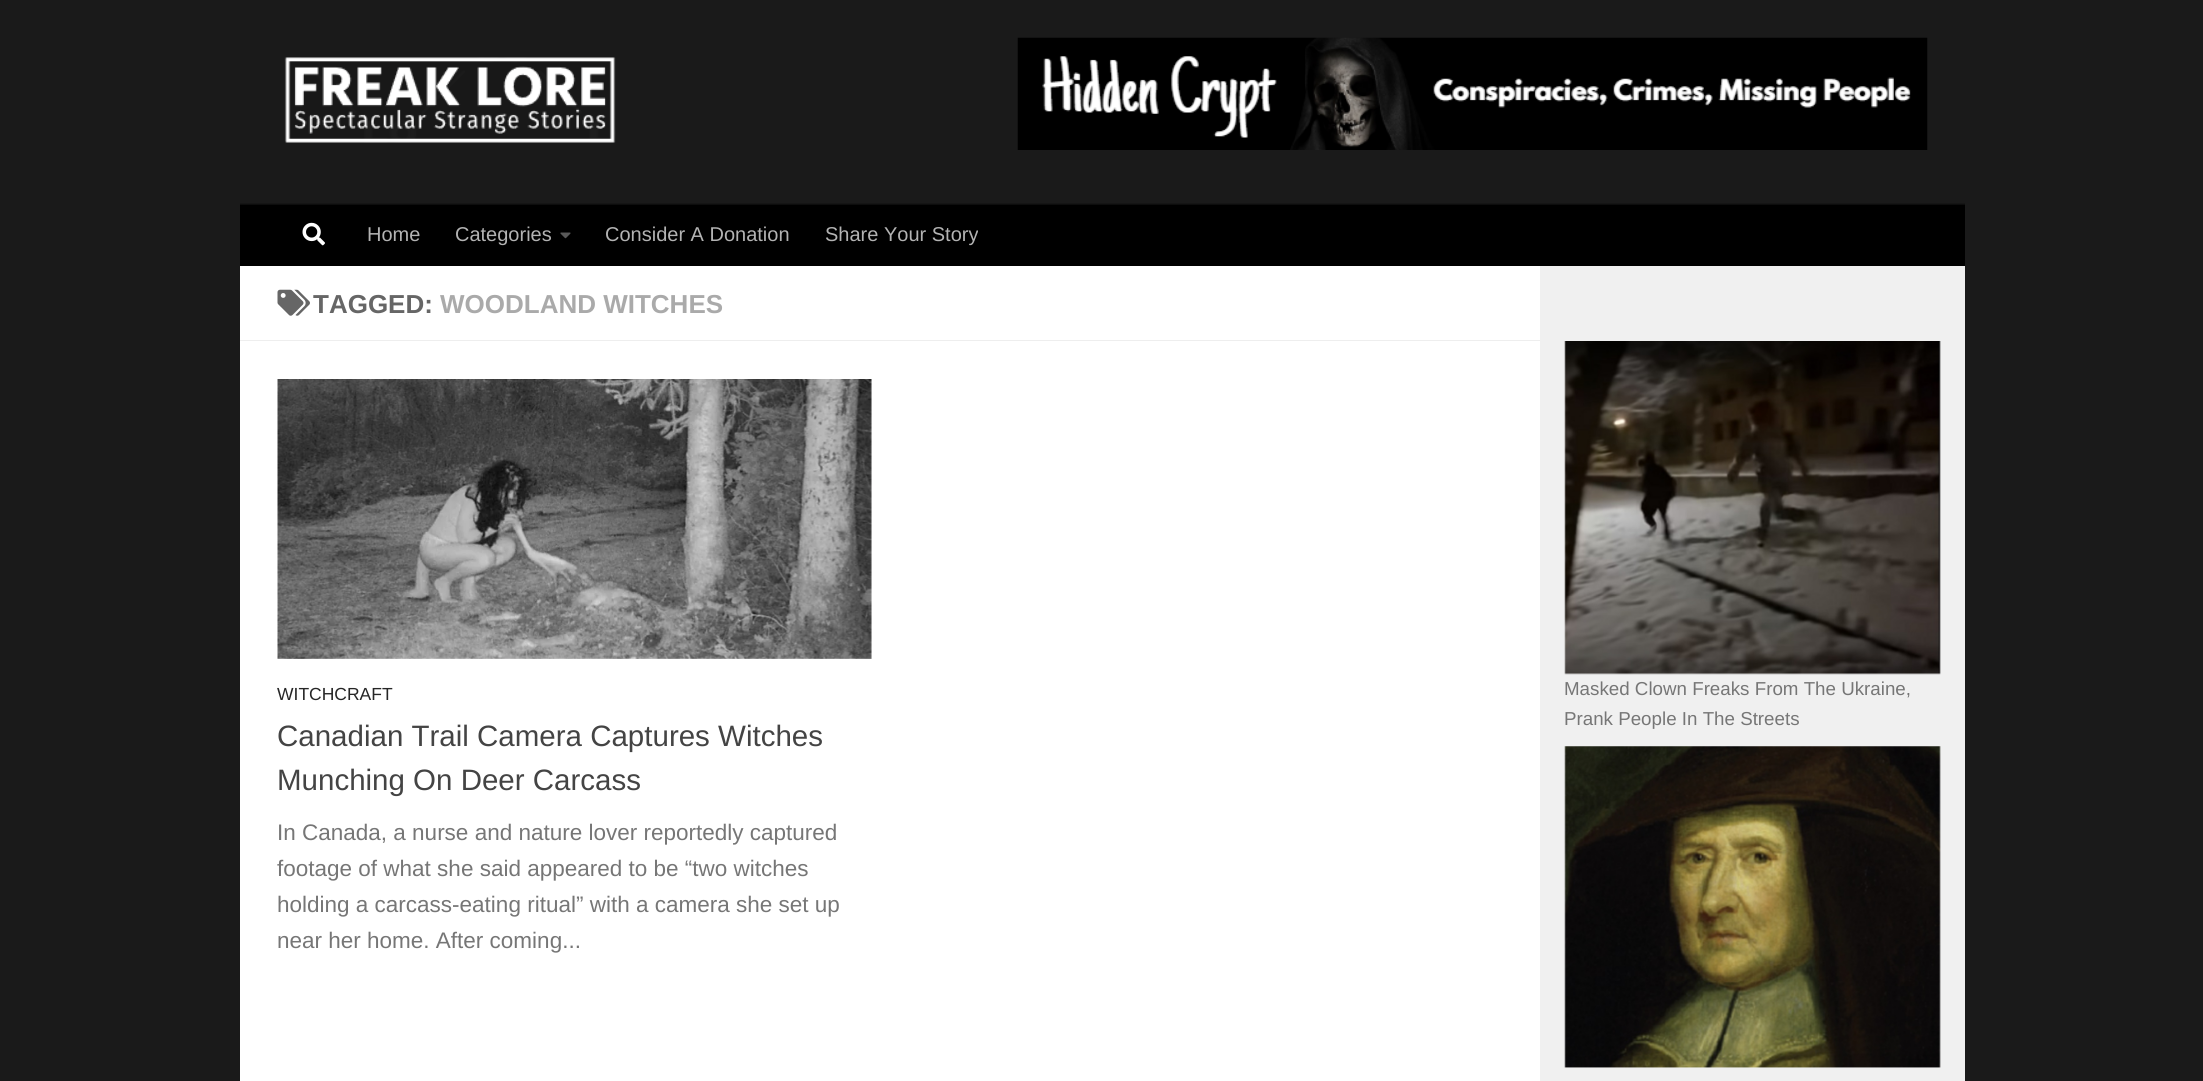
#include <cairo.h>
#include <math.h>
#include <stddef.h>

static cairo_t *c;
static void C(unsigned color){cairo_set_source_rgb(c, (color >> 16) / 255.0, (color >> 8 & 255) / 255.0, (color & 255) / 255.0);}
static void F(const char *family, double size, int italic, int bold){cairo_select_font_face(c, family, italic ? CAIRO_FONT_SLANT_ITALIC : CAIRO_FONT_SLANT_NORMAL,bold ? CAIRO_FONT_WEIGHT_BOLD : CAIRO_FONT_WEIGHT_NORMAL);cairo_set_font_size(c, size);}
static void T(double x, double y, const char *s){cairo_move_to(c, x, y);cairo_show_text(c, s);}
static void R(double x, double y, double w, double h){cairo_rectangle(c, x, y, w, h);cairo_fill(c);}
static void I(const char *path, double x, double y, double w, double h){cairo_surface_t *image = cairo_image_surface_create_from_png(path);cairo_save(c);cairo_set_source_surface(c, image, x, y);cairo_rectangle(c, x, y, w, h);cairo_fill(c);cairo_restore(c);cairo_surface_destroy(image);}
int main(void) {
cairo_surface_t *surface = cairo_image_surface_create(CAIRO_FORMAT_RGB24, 2203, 1081);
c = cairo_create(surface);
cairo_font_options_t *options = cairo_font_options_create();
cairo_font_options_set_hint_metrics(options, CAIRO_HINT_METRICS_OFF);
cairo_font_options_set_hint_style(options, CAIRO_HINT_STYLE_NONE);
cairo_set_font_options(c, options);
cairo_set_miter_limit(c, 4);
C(0x1a1a1a);
cairo_paint(c);
I("1.png",284,57,332,86);
I("2.png",1017,37,911,113);
C(0x151515);
R(240,203,1725,1);
C(0x000000);
R(240,205,1725,61);
C(0x0d0d0d);
R(240,204,1725,1);
I("3.png",302,222,23,24);
F("Liberation Sans",20,0,0);
C(0xb3b3b3);
T(367,241,"Home");
T(455,241,"Categories");
I("4.png",560,232,11,7);
T(605,241,"Consider A Donation");
T(825,241,"Share Your Story");
C(0xffffff);
R(240,266,1300,815);
C(0xf0f0f0);
R(1540,266,425,815);
C(0xeeeeee);
R(240,340,1300,1);
I("5.png",277,289,33,27);
F("Liberation Sans",26,0,1);
C(0x666666);
T(313,313,"TAGGED:");
C(0xaaaaaa);
T(440,313,"WOODLAND WITCHES");
I("6.png",277,379,595,280);
F("Liberation Sans",17.5,0,0);
C(0x262626);
T(277,700,"WITCHCRAFT");
F("Liberation Sans",29.5,0,0);
C(0x444444);
T(277,746,"Canadian Trail Camera Captures Witches");
T(277,790,"Munching On Deer Carcass");
F("Liberation Sans",22.5,0,0);
C(0x767676);
T(277,840,"In Canada, a nurse and nature lover reportedly captured");
T(277,876,"footage of what she said appeared to be “two witches");
T(277,912,"holding a carcass-eating ritual” with a camera she set up");
T(277,948,"near her home. After coming...");
I("7.png",1564,341,377,334);
F("Liberation Sans",18.75,0,0);
T(1564,695,"Masked Clown Freaks From The Ukraine,");
T(1564,725,"Prank People In The Streets");
I("8.png",1564,746,377,322);
cairo_surface_write_to_png(surface, "o.png");
cairo_font_options_destroy(options);
cairo_destroy(c);
cairo_surface_destroy(surface);
return 0;
}
